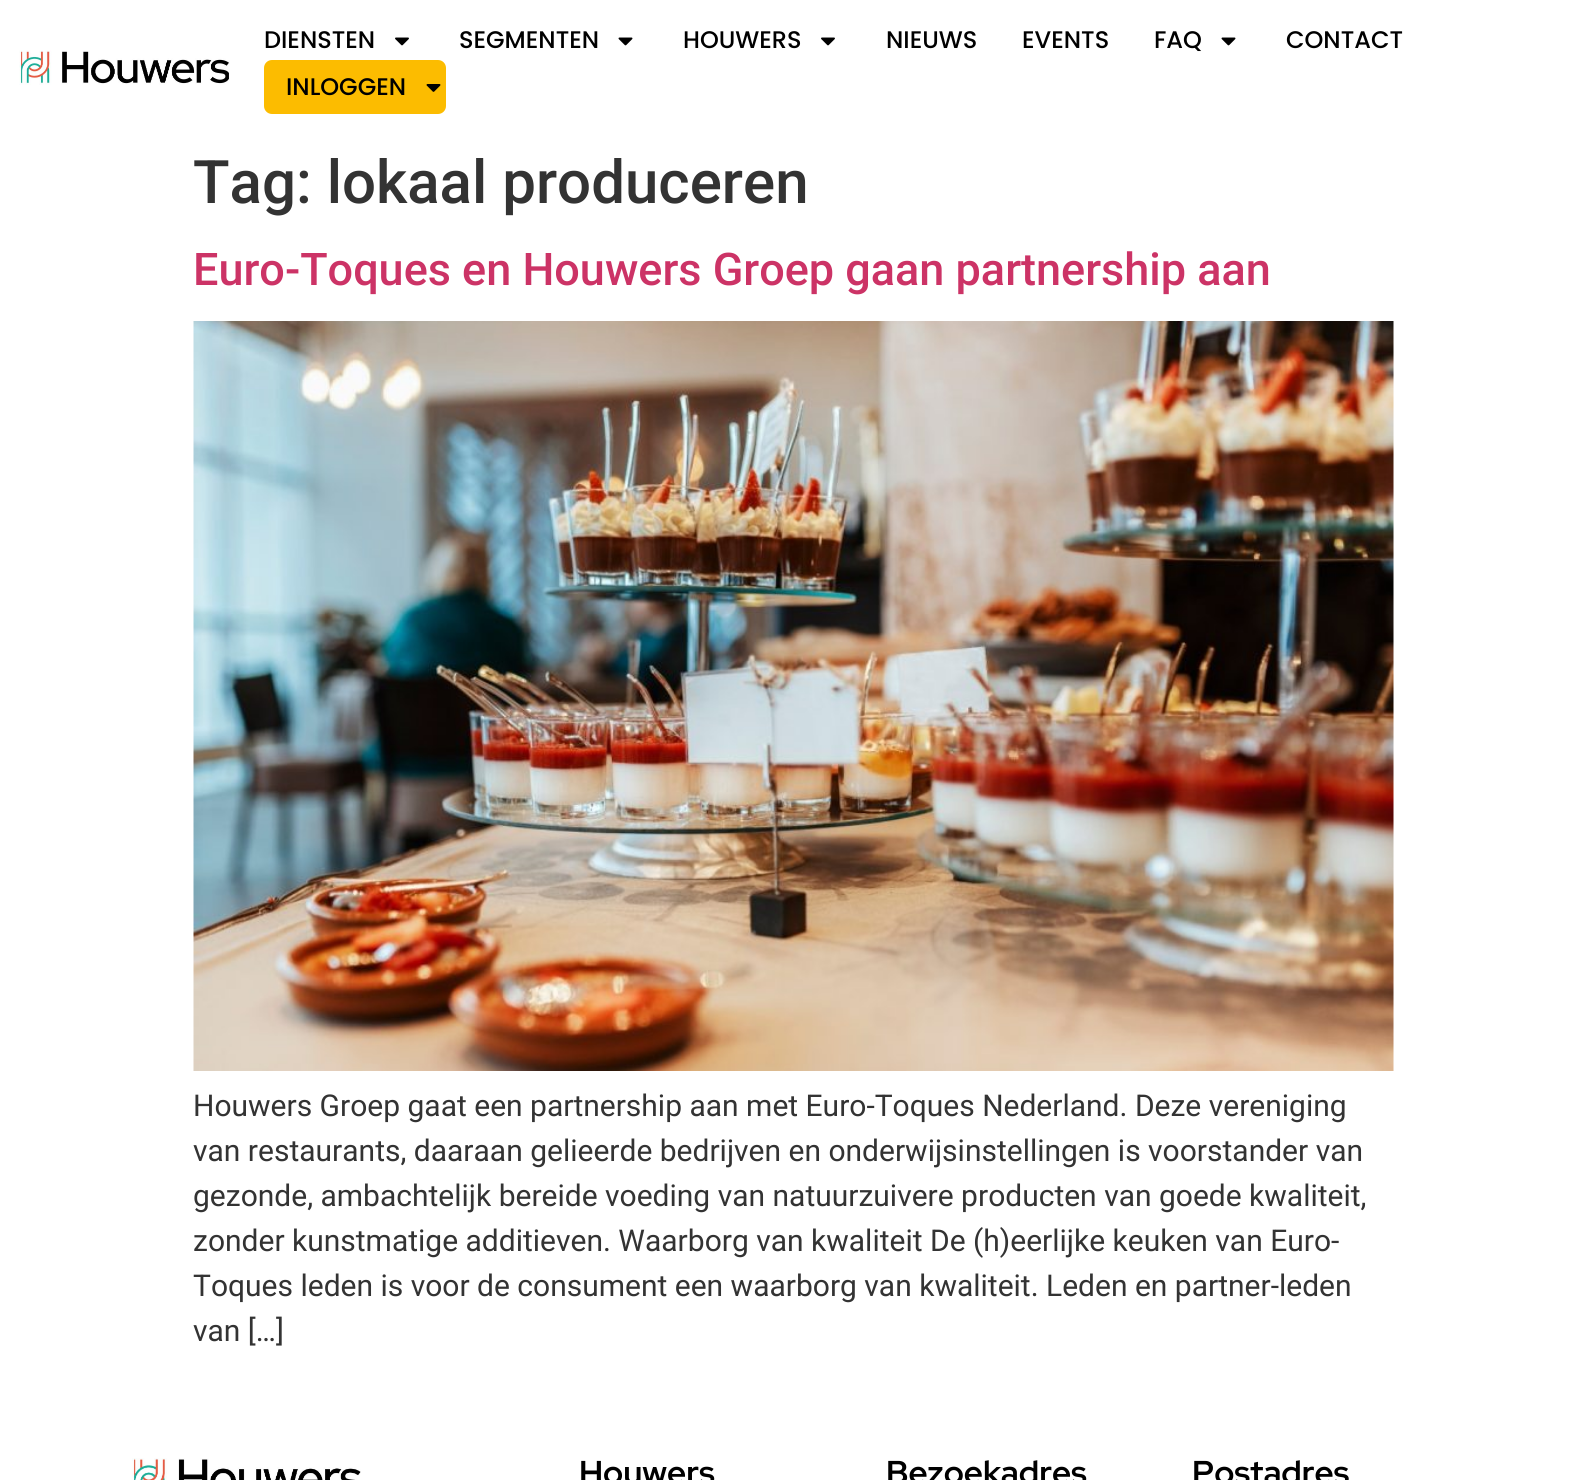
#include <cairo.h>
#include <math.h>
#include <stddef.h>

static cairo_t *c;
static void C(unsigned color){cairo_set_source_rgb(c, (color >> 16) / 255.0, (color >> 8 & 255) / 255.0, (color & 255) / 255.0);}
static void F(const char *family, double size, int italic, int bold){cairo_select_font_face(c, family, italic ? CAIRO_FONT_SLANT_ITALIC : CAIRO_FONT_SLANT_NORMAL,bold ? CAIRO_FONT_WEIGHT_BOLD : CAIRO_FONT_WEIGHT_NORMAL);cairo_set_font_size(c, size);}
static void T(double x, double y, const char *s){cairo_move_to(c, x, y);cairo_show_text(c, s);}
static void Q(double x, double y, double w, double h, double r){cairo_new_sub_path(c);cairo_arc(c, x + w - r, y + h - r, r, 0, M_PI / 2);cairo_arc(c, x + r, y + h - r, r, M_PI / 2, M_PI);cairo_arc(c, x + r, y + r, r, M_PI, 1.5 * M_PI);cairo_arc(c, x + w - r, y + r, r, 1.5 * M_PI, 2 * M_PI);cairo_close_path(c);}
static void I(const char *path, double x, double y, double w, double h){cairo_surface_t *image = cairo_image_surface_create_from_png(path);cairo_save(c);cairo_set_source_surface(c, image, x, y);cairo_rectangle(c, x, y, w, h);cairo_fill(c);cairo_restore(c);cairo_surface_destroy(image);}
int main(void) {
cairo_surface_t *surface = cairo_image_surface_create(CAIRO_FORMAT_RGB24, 1585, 1480);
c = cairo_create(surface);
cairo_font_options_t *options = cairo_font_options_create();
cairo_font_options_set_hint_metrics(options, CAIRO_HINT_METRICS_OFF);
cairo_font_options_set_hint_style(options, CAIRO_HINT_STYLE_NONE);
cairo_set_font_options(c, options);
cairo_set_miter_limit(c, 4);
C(0xffffff);
cairo_paint(c);
I("1.png",19,50,211,35);
F("Poppins Medium",24,0,0);
C(0x000000);
T(264,48,"DIENSTEN");
I("2.png",395,37,14,9);
T(459,48,"SEGMENTEN");
I("3.png",618,37,15,9);
T(683,48,"HOUWERS");
I("2.png",821,37,14,9);
T(886,48,"NIEUWS");
T(1022,48,"EVENTS");
T(1154,48,"FAQ");
I("3.png",1221,37,15,9);
T(1286,48,"CONTACT");
C(0xfcbc00);
Q(264,60,182,54,8);
cairo_fill(c);
C(0x000000);
T(286,95,"INLOGGEN");
I("4.png",426,84,15,8);
F("Roboto Medium",60,0,0);
C(0x333333);
T(193,203,"Tag: lokaal produceren");
F("Roboto Medium",45,0,0);
C(0xcc3366);
T(193,285,"Euro-Toques en Houwers Groep gaan partnership aan");
I("5.png",193,321,1201,750);
F("Roboto",30,0,0);
C(0x333333);
T(193,1116,"Houwers Groep gaat een partnership aan met Euro-Toques Nederland. Deze vereniging");
T(193,1161,"van restaurants, daaraan gelieerde bedrijven en onderwijsinstellingen is voorstander van");
T(193,1206,"gezonde, ambachtelijk bereide voeding van natuurzuivere producten van goede kwaliteit,");
T(193,1251,"zonder kunstmatige additieven. Waarborg van kwaliteit De (h)eerlijke keuken van Euro-");
T(193,1296,"Toques leden is voor de consument een waarborg van kwaliteit. Leden en partner-leden");
T(193,1341,"van […]");
I("6.png",132,1458,229,22);
F("Red Hat Display",33,0,1);
C(0x000000);
T(579,1484,"Houwers");
T(886,1484,"Bezoekadres");
T(1192,1484,"Postadres");
cairo_surface_write_to_png(surface, "o.png");
cairo_font_options_destroy(options);
cairo_destroy(c);
cairo_surface_destroy(surface);
return 0;
}
